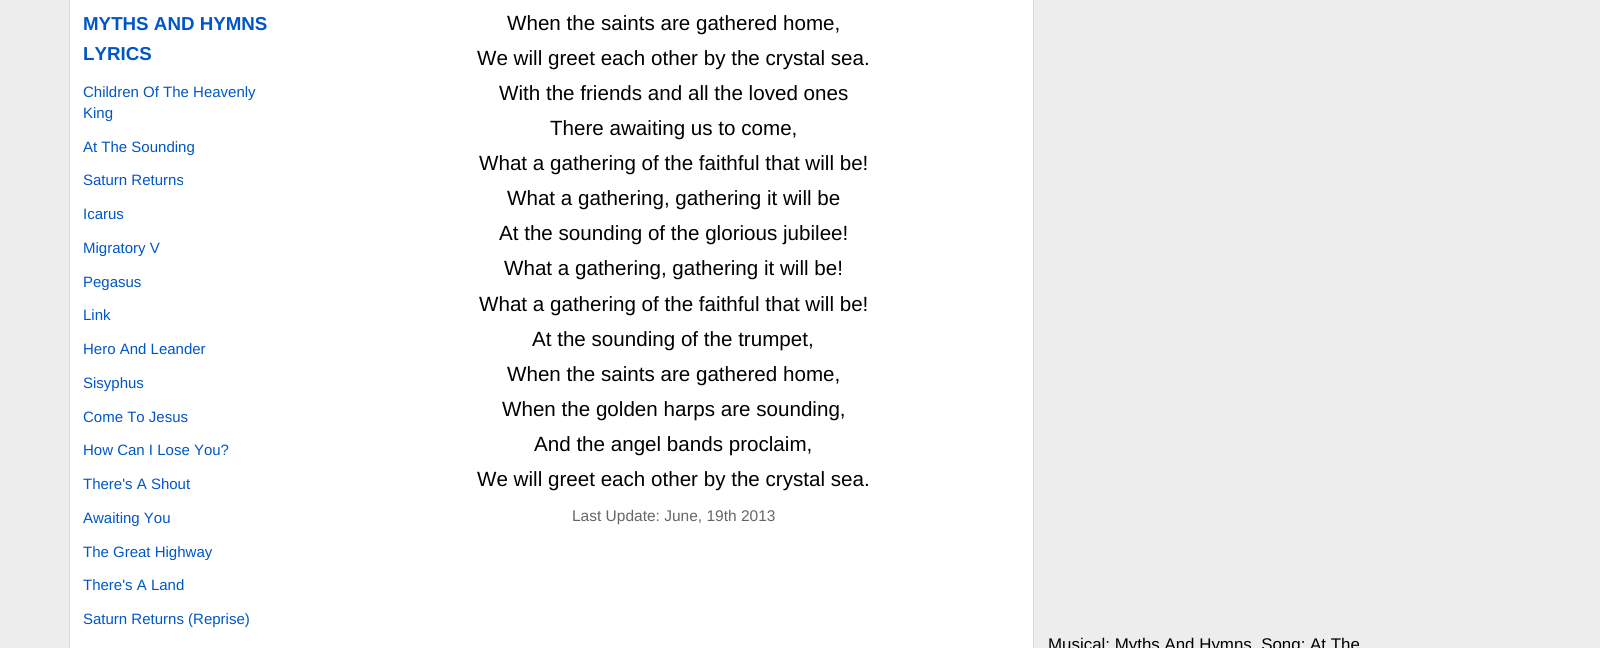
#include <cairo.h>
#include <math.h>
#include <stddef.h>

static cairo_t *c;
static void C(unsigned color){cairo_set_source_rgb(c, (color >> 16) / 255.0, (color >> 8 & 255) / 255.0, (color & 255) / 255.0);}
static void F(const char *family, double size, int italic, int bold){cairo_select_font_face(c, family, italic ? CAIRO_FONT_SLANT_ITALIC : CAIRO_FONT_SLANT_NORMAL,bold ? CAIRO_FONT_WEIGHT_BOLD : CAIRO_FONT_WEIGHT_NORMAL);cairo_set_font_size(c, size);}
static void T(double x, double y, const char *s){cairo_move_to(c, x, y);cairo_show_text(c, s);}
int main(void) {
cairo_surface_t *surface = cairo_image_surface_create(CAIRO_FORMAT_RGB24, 1600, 648);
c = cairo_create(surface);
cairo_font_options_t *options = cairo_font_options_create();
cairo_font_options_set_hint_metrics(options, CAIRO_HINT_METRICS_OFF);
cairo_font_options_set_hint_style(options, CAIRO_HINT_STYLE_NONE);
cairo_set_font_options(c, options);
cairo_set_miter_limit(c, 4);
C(0xededed);
cairo_paint(c);
C(0xffffff);
cairo_rectangle(c,69.5,-.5,964,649);
cairo_fill_preserve(c);
C(0xd8d8d8);
cairo_set_line_width(c,1);
cairo_stroke(c);
F("Liberation Sans",18.75,0,1);
C(0x0056c7);
T(83,30,"MYTHS AND HYMNS");
T(83,60,"LYRICS");
F("Liberation Sans",15,0,0);
T(83,97,"Children Of The Heavenly");
T(83,118,"King");
T(83,152,"At The Sounding");
T(83,185,"Saturn Returns");
T(83,219,"Icarus");
T(83,253,"Migratory V");
T(83,287,"Pegasus");
T(83,320,"Link");
T(83,354,"Hero And Leander");
T(83,388,"Sisyphus");
T(83,422,"Come To Jesus");
T(83,455,"How Can I Lose You?");
T(83,489,"There's A Shout");
T(83,523,"Awaiting You");
T(83,557,"The Great Highway");
T(83,590,"There's A Land");
T(83,624,"Saturn Returns (Reprise)");
F("Liberation Sans",20.6,0,0);
C(0x000000);
T(507,30,"When the saints are gathered home,");
T(477,65,"We will greet each other by the crystal sea.");
T(499,100,"With the friends and all the loved ones");
T(550,135,"There awaiting us to come,");
T(479,170,"What a gathering of the faithful that will be!");
T(507,205,"What a gathering, gathering it will be");
T(499,240,"At the sounding of the glorious jubilee!");
T(504,275,"What a gathering, gathering it will be!");
T(479,311,"What a gathering of the faithful that will be!");
T(532,346,"At the sounding of the trumpet,");
T(507,381,"When the saints are gathered home,");
T(502,416,"When the golden harps are sounding,");
T(534,451,"And the angel bands proclaim,");
T(477,486,"We will greet each other by the crystal sea.");
F("Liberation Sans",15.5,0,0);
C(0x666666);
T(572,521,"Last Update: June, 19th 2013");
F("Liberation Sans",16.9,0,0);
C(0x000000);
T(1048,650,"Musical: Myths And Hymns. Song: At The");
cairo_surface_write_to_png(surface, "o.png");
cairo_font_options_destroy(options);
cairo_destroy(c);
cairo_surface_destroy(surface);
return 0;
}
